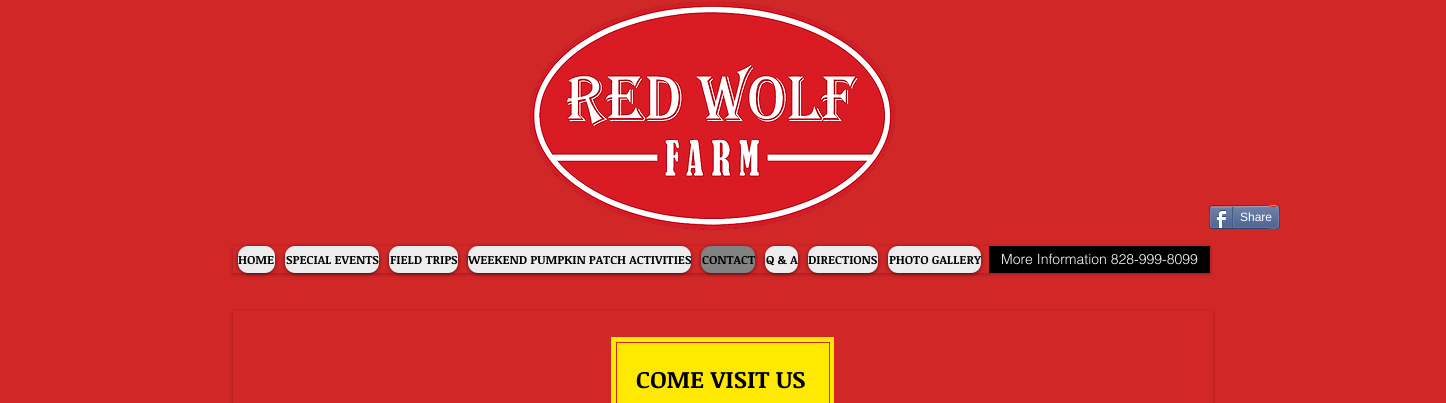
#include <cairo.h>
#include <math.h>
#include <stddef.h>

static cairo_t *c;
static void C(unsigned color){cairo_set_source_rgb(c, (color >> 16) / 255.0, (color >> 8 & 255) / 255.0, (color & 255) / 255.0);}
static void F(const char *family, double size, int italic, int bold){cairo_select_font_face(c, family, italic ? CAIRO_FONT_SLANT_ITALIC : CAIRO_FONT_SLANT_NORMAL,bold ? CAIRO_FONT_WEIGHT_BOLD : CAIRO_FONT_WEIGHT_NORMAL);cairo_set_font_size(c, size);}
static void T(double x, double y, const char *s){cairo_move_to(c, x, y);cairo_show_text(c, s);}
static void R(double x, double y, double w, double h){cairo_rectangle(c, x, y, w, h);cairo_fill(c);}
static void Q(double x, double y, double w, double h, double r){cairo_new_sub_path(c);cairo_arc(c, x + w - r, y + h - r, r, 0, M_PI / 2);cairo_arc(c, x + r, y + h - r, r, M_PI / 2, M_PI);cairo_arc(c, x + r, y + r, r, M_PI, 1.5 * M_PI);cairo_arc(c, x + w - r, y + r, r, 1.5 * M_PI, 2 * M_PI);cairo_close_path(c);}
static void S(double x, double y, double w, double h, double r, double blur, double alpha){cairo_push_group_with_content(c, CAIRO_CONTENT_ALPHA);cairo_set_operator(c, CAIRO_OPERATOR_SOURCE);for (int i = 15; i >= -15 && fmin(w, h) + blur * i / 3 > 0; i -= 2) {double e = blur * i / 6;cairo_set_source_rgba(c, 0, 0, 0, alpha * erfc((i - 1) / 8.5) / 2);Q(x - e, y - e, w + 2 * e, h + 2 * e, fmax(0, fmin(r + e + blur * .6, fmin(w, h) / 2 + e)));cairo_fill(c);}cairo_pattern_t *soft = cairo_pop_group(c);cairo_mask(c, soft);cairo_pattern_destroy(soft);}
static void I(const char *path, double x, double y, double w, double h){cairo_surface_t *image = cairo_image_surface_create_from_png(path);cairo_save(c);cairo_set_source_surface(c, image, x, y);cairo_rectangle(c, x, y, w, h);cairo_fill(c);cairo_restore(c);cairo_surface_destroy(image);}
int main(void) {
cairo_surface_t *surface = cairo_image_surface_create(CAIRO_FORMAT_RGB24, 1446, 403);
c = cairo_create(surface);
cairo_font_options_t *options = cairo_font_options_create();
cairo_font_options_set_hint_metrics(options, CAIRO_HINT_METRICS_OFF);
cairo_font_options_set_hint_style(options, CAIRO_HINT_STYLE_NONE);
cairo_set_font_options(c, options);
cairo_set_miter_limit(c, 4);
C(0xd12727);
cairo_paint(c);
I("1.png",529,1,367,230);
Q(1209.5,205.5,70,23,2.5);
C(0x2d4565);
cairo_set_line_width(c,1);
cairo_stroke(c);
I("2.png",1210,207,69,21);
cairo_new_path(c);
cairo_move_to(c,1211,207);
cairo_line_to(c,1266,206.5);
cairo_curve_to(c,1270,206.5,1275,204,1278,207);
C(0x9aabc6);
cairo_stroke(c);
cairo_new_path(c);
cairo_move_to(c,1278,207);
cairo_curve_to(c,1279,207.5,1279,226.5,1278,227);
C(0x6f83ad);
cairo_stroke(c);
cairo_new_path(c);
cairo_move_to(c,1278,227);
cairo_curve_to(c,1275,230,1270,227.5,1266,227.5);
cairo_line_to(c,1211,227);
C(0x6176a3);
cairo_stroke(c);
cairo_new_path(c);
cairo_move_to(c,1211,227);
cairo_curve_to(c,1210,226.5,1210,207.5,1211,207);
C(0x6f83ad);
cairo_stroke(c);
I("3.png",1216,210,10,18);
C(0x425e85);
R(1232,207,1,21);
F("Liberation Sans",12,0,0);
C(0xffffff);
T(1240,221,"Share");
C(0x6176a3);
R(1233,207,1,20);
cairo_save(c);
cairo_set_fill_rule(c,CAIRO_FILL_RULE_EVEN_ODD);
cairo_new_path(c);
cairo_move_to(c,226,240);
cairo_line_to(c,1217,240);
cairo_line_to(c,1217,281);
cairo_line_to(c,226,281);
cairo_close_path(c);
cairo_move_to(c,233,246);
cairo_line_to(c,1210,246);
cairo_line_to(c,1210,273);
cairo_line_to(c,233,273);
cairo_close_path(c);
cairo_clip(c);
C(0x000000);
S(233,247,977,27,0,2,.3);
cairo_restore(c);
C(0x000000);
S(238,247,37,27,10,2,.6);
C(0xededed);
Q(238,246,37,27,10);
cairo_fill(c);
F("Noticia Text",12,0,1);
C(0x000000);
T(238,264,"HOME");
C(0x000000);
S(285,247,94,27,10,2,.6);
C(0xededed);
Q(285,246,94,27,10);
cairo_fill(c);
C(0x000000);
T(286,264,"SPECIAL EVENTS");
C(0x000000);
S(389,247,69,27,10,2,.6);
C(0xededed);
Q(389,246,69,27,10);
cairo_fill(c);
C(0x000000);
T(390,264,"FIELD TRIPS");
C(0x000000);
S(468,247,223,27,10,2,.6);
C(0xededed);
Q(468,246,223,27,10);
cairo_fill(c);
C(0x000000);
T(468,264,"WEEKEND PUMPKIN PATCH ACTIVITIES");
C(0x000000);
S(701,247,54,27,10,2,.6);
C(0x828282);
Q(701,246,54,27,10);
cairo_fill(c);
C(0x000000);
T(702,264,"CONTACT");
C(0x000000);
S(765,247,33,27,10,2,.6);
C(0xededed);
Q(765,246,33,27,10);
cairo_fill(c);
C(0x000000);
T(766,264,"Q & A");
C(0x000000);
S(808,247,70,27,10,2,.6);
C(0xededed);
Q(808,246,70,27,10);
cairo_fill(c);
C(0x000000);
T(808,264,"DIRECTIONS");
C(0x000000);
S(888,247,93,27,10,2,.6);
C(0xededed);
Q(888,246,93,27,10);
cairo_fill(c);
C(0x000000);
T(889,264,"PHOTO GALLERY");
R(989,246,221,27);
F("helvetica Light",14,0,0);
C(0xffffff);
T(1001,264,"More Information 828-999-8099");
cairo_save(c);
cairo_set_fill_rule(c,CAIRO_FILL_RULE_EVEN_ODD);
cairo_new_path(c);
cairo_move_to(c,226,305);
cairo_line_to(c,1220,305);
cairo_line_to(c,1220,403);
cairo_line_to(c,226,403);
cairo_close_path(c);
cairo_move_to(c,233,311);
cairo_line_to(c,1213,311);
cairo_line_to(c,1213,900);
cairo_line_to(c,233,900);
cairo_close_path(c);
cairo_clip(c);
C(0x000000);
S(233,312,980,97,0,2,.3);
cairo_restore(c);
C(0xffe900);
R(611,337,223,66);
cairo_rectangle(c,616.5,342.5,213,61);
C(0xd12727);
cairo_stroke(c);
F("Noticia Text",24,0,1);
C(0x000000);
T(636,388,"COME VISIT US");
cairo_surface_write_to_png(surface, "o.png");
cairo_font_options_destroy(options);
cairo_destroy(c);
cairo_surface_destroy(surface);
return 0;
}
